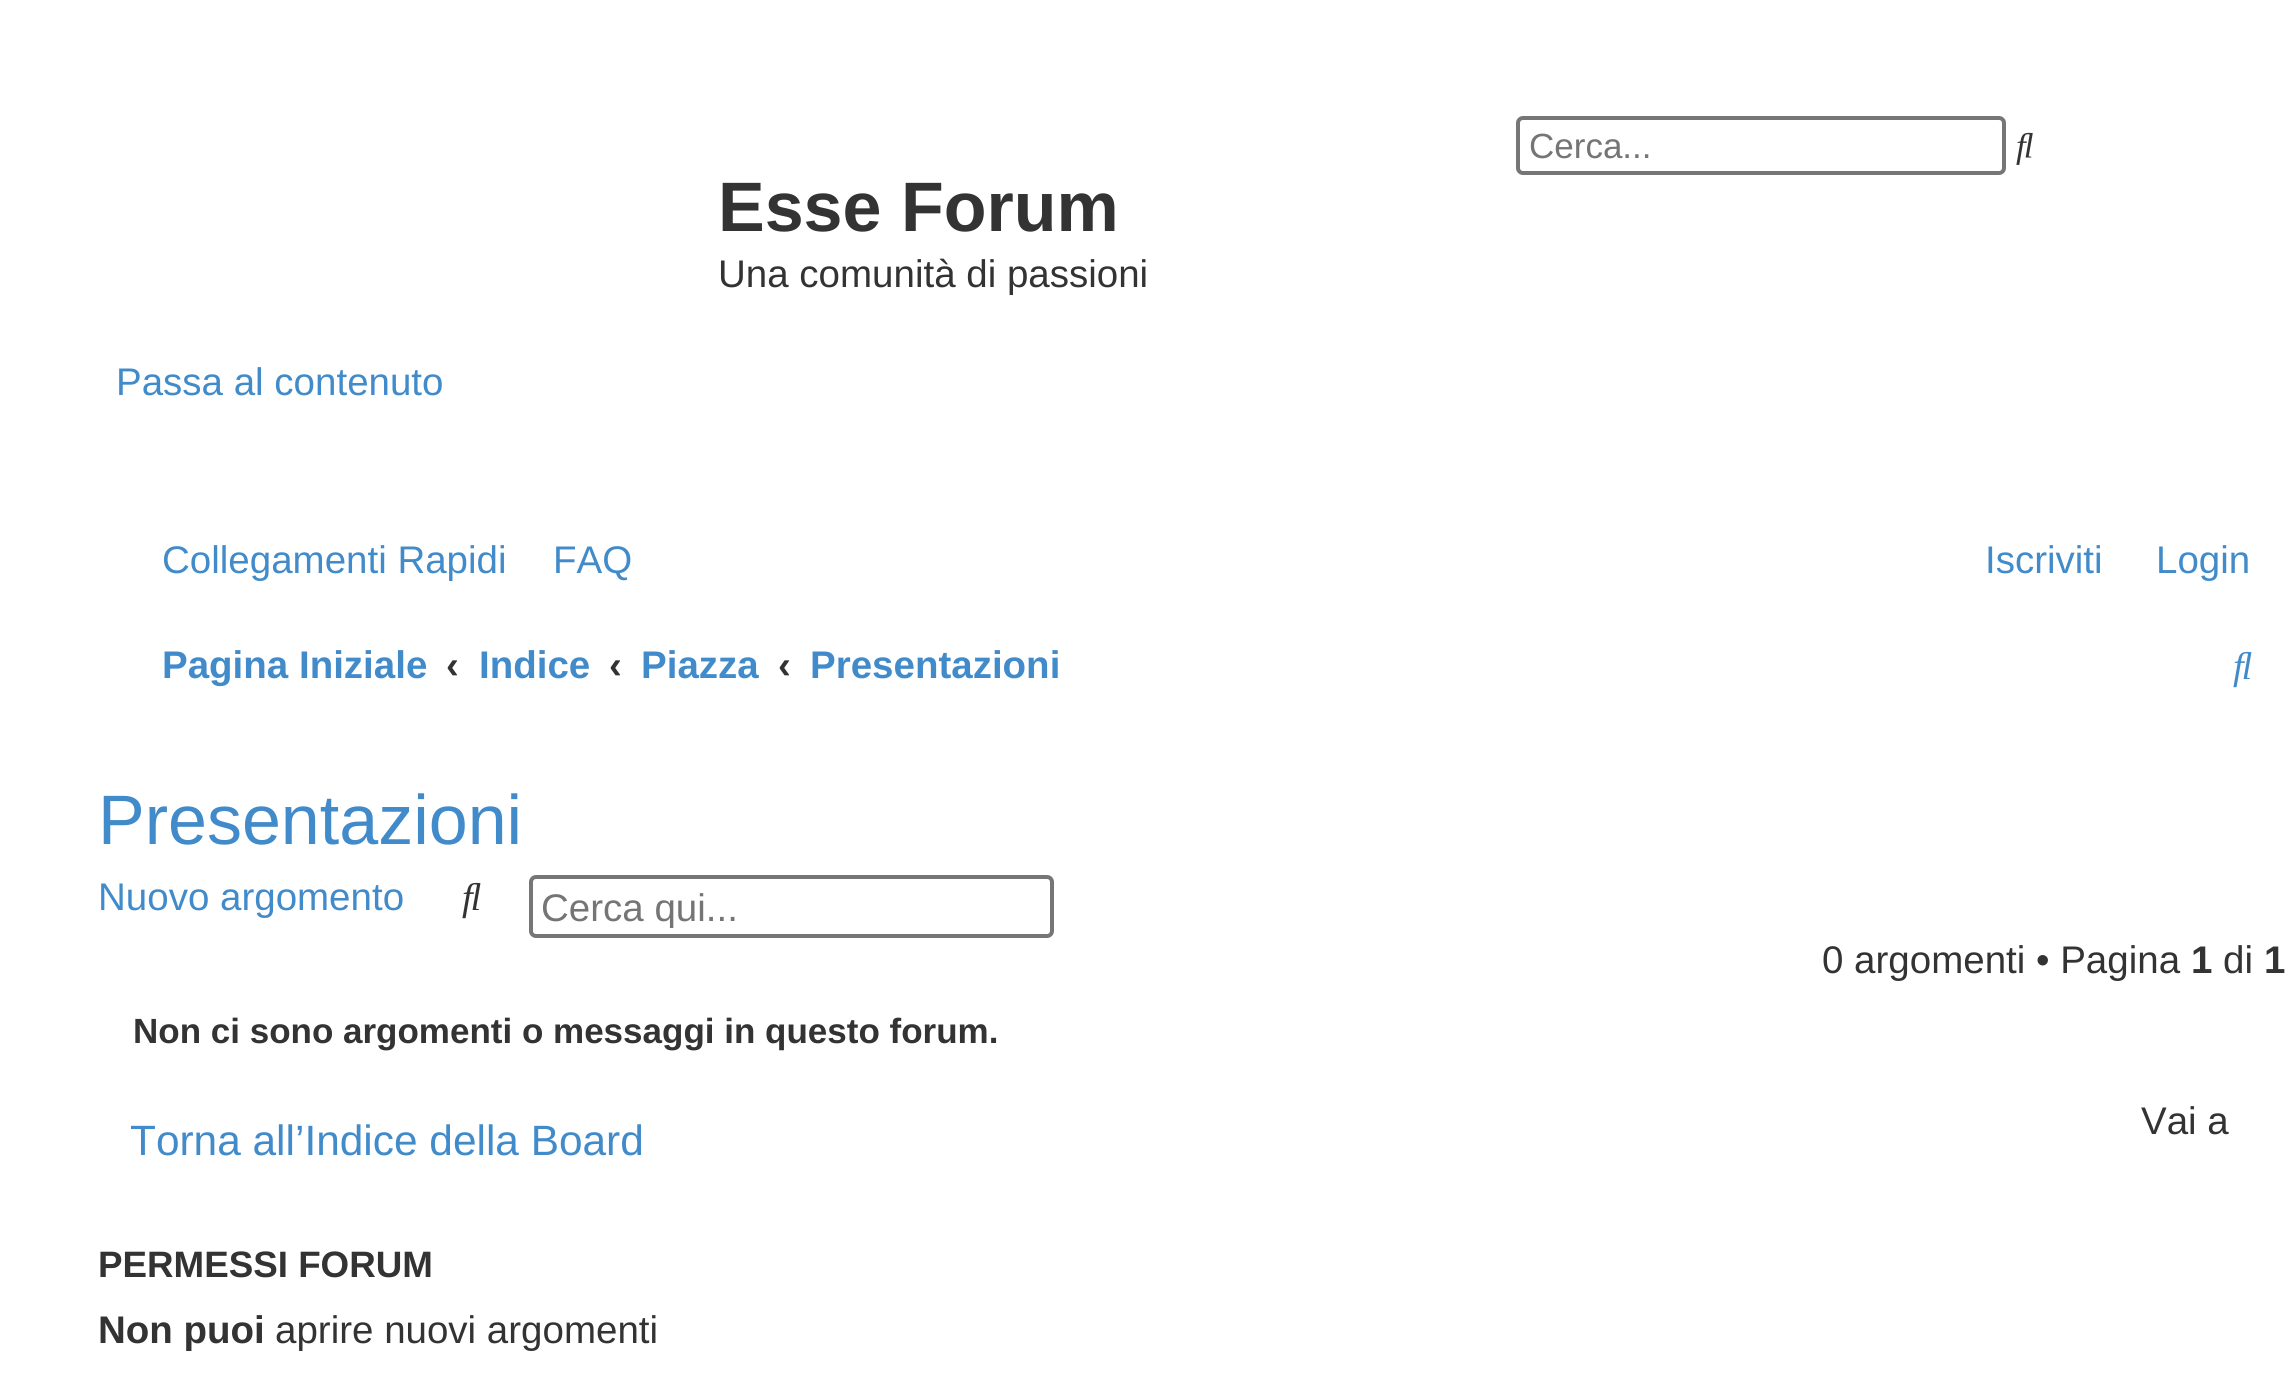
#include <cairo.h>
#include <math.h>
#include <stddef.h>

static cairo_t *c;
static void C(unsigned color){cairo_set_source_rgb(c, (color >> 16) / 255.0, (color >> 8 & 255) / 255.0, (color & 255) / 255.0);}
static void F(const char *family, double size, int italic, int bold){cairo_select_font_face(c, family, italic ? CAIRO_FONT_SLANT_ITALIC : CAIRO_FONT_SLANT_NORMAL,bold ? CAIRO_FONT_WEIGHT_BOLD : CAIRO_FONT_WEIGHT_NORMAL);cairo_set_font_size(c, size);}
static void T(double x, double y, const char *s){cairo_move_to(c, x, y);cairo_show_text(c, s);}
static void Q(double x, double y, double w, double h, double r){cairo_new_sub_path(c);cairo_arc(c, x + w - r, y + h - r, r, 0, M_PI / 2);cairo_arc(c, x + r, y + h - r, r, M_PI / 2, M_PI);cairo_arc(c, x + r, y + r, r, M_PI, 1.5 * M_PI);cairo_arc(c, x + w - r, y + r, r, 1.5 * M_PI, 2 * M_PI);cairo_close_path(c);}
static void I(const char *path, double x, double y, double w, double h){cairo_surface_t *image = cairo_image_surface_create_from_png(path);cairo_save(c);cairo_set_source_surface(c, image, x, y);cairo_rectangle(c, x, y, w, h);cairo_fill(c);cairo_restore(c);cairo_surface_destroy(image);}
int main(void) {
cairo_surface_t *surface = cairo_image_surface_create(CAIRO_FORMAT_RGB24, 2289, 1380);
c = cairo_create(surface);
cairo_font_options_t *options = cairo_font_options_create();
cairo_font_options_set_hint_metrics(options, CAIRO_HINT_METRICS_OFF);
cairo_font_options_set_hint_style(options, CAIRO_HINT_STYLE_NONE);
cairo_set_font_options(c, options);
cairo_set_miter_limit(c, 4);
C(0xffffff);
cairo_paint(c);
Q(1518,118,486,55,5);
C(0x767676);
cairo_set_line_width(c,4);
cairo_stroke(c);
F("Liberation Sans",35,0,0);
C(0x757575);
T(1529,158,"Cerca...");
I("1.png",2016,132,17,33);
F("Liberation Sans",70,0,1);
C(0x333333);
T(718,231,"Esse Forum");
F("Liberation Sans",38.5,0,0);
T(718,287,"Una comunità di passioni");
C(0x428bca);
T(116,395,"Passa al contenuto");
T(162,573,"Collegamenti Rapidi");
T(553,573,"FAQ");
T(1985,573,"Iscriviti");
T(2156,573,"Login");
F("Liberation Sans",38.5,0,1);
T(162,678,"Pagina Iniziale");
C(0x333333);
T(446,678,"‹");
C(0x428bca);
T(479,678,"Indice");
C(0x333333);
T(609,678,"‹");
C(0x428bca);
T(641,678,"Piazza");
C(0x333333);
T(778,678,"‹");
C(0x428bca);
T(810,678,"Presentazioni");
I("2.png",2233,651,19,37);
F("Liberation Sans",70,0,0);
T(98,844,"Presentazioni");
F("Liberation Sans",38.5,0,0);
T(98,910,"Nuovo argomento");
I("3.png",462,882,19,37);
Q(531,877,521,59,5);
C(0x767676);
cairo_stroke(c);
cairo_save(c);
cairo_rectangle(c,543,886,483,42);
cairo_clip(c);
C(0x757575);
T(541,921,"Cerca qui...");
cairo_restore(c);
C(0x333333);
T(1822,973,"0 argomenti • Pagina");
F("Liberation Sans",38.5,0,1);
T(2191,973,"1");
F("Liberation Sans",38.5,0,0);
T(2223,973,"di");
F("Liberation Sans",38.5,0,1);
T(2264,973,"1");
F("Liberation Sans",35,0,1);
T(133,1043,"Non ci sono argomenti o messaggi in questo forum.");
F("Liberation Sans",38.5,0,0);
T(2141,1134,"Vai a");
F("Liberation Sans",42.4,0,0);
C(0x428bca);
T(130,1155,"Torna all’Indice della Board");
F("Liberation Sans",36.75,0,1);
C(0x333333);
T(98,1277,"PERMESSI FORUM");
F("Liberation Sans",38.5,0,1);
T(98,1343,"Non puoi");
F("Liberation Sans",38.5,0,0);
T(275,1343,"aprire nuovi argomenti");
cairo_surface_write_to_png(surface, "o.png");
cairo_font_options_destroy(options);
cairo_destroy(c);
cairo_surface_destroy(surface);
return 0;
}
